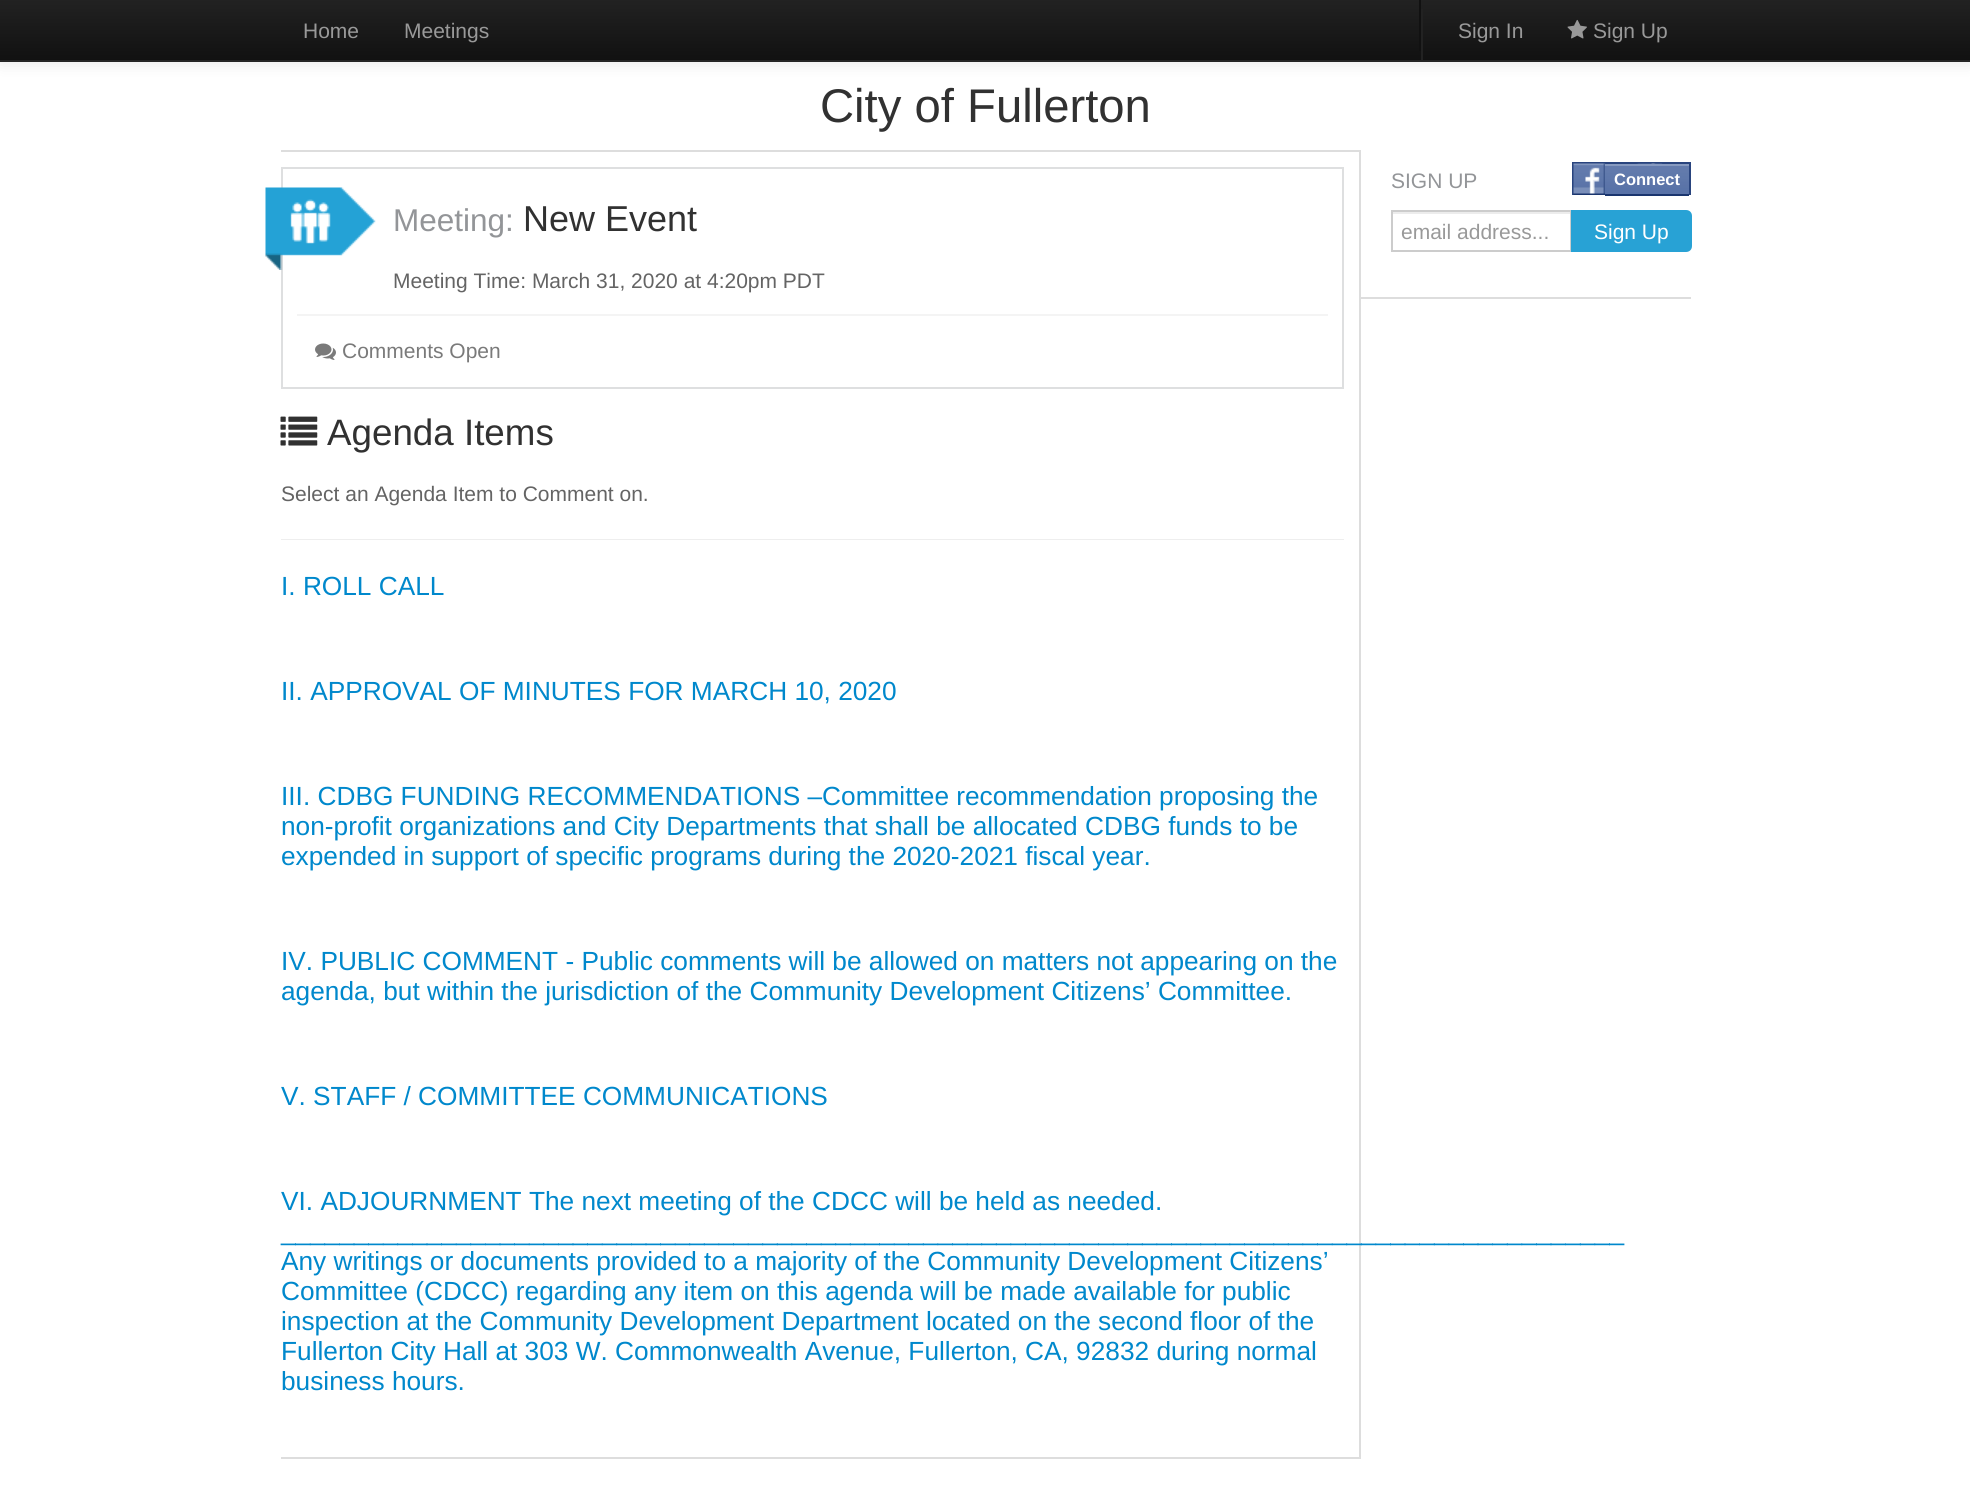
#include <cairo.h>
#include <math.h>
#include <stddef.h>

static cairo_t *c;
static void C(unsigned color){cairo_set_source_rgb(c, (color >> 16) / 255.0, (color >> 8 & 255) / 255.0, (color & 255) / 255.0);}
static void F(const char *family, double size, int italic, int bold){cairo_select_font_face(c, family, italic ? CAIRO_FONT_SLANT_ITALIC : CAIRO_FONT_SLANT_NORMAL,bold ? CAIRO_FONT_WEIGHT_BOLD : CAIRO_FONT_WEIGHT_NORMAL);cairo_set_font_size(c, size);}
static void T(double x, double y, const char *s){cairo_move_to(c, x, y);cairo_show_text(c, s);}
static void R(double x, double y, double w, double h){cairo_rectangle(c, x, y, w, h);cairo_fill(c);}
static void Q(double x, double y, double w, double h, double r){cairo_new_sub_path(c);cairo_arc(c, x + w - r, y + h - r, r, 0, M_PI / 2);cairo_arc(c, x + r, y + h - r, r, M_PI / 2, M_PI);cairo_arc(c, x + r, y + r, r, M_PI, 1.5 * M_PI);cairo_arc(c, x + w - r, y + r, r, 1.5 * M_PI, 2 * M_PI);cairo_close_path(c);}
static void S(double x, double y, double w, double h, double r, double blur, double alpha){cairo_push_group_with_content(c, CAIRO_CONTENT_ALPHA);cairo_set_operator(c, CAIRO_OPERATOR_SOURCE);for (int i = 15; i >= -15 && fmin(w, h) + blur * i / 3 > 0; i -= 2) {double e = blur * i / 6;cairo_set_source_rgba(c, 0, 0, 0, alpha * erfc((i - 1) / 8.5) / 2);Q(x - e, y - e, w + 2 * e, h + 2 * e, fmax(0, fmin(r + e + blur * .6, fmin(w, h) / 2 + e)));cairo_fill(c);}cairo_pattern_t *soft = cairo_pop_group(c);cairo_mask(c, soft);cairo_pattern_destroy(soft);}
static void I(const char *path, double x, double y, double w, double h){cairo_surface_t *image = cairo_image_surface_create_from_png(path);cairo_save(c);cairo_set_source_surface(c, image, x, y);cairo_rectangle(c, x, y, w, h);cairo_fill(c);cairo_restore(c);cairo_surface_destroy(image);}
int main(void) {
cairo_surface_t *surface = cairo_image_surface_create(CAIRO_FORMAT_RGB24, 1970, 1487);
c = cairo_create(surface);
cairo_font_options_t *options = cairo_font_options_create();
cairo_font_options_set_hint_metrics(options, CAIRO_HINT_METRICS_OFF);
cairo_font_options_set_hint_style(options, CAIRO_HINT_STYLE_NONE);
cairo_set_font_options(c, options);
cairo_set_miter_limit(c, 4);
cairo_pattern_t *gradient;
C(0xffffff);
cairo_paint(c);
C(0x000000);
S(0,2,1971,61,0,7.5,.1);
gradient = cairo_pattern_create_linear(986,0,986,60);
cairo_pattern_add_color_stop_rgba(gradient,0,0.133,0.133,0.133,1);
cairo_pattern_add_color_stop_rgba(gradient,1,0.067,0.067,0.067,1);
cairo_set_source(c,gradient);
cairo_pattern_destroy(gradient);
R(0,0,1970,60);
C(0x252525);
R(0,60,1970,2);
F("Liberation Sans",21,0,0);
C(0x999999);
T(303,38,"Home");
T(404,38,"Meetings");
C(0x222222);
R(1421,9,2,51);
C(0x111111);
R(1419,0,2,51);
C(0x999999);
T(1458,38,"Sign In");
I("1.png",1567,19,20,20);
T(1593,38,"Sign Up");
F("Liberation Sans",47.25,0,0);
C(0x313131);
T(820,122,"City of Fullerton");
C(0xdddddd);
R(281,150,1080,2);
R(1359,150,2,1308);
R(1359,297,332,2);
F("Liberation Sans",21,0,0);
C(0x939598);
T(1391,188,"SIGN UP");
C(0x29447e);
R(1572,162,119,33);
I("2.png",1573,163,33,32);
I("3.png",1605,163,84,31);
C(0x879ac0);
R(1605,164,84,2);
C(0x1a356e);
R(1605,194,84,2);
F("Liberation Sans",16.5,0,1);
C(0xffffff);
T(1614,185,"Connect");
C(0xececec);
R(1392,212,179,2);
cairo_rectangle(c,1392,211,179,40);
C(0xcccccc);
cairo_stroke(c);
F("Liberation Sans",21,0,0);
C(0x999999);
T(1401,239,"email address...");
C(0x28a2d5);
cairo_new_path(c);
cairo_move_to(c,1571,210);
cairo_line_to(c,1686,210);
cairo_curve_to(c,1689.5,210,1692,212.5,1692,216);
cairo_line_to(c,1692,246);
cairo_curve_to(c,1692,249.5,1689.5,252,1686,252);
cairo_line_to(c,1571,252);
cairo_close_path(c);
cairo_fill(c);
C(0xffffff);
T(1594,239,"Sign Up");
C(0xdddddd);
R(281,1457,1080,2);
cairo_rectangle(c,282,168,1061,220);
C(0xdedfe0);
cairo_stroke(c);
I("4.png",265,187,111,83);
F("Liberation Sans",31.5,0,0);
C(0x939598);
T(393,231,"Meeting:");
F("Liberation Sans",36,0,0);
C(0x313131);
T(523,231,"New Event");
F("Liberation Sans",21,0,0);
C(0x646464);
T(393,288,"Meeting Time: March 31, 2020 at 4:20pm PDT");
C(0xf4f4f4);
R(297,314,1031,2);
I("5.png",315,343,21,17);
C(0x7a7a7a);
T(342,358,"Comments Open");
I("6.png",280,416,38,30);
F("Liberation Sans",36.75,0,0);
C(0x313131);
T(327,445,"Agenda Items");
F("Liberation Sans",21,0,0);
C(0x646464);
T(281,501,"Select an Agenda Item to Comment on.");
C(0xeeeeee);
R(281,539,1063,1);
F("Liberation Sans",26.25,0,0);
C(0x0088cc);
T(281,595,"I. ROLL CALL");
T(281,700,"II. APPROVAL OF MINUTES FOR MARCH 10, 2020");
T(281,805,"III. CDBG FUNDING RECOMMENDATIONS –Committee recommendation proposing the");
T(281,835,"non-profit organizations and City Departments that shall be allocated CDBG funds to be");
T(281,865,"expended in support of specific programs during the 2020-2021 fiscal year.");
T(281,970,"IV. PUBLIC COMMENT - Public comments will be allowed on matters not appearing on the");
T(281,1000,"agenda, but within the jurisdiction of the Community Development Citizens’ Committee.");
T(281,1105,"V. STAFF / COMMITTEE COMMUNICATIONS");
T(281,1210,"VI. ADJOURNMENT The next meeting of the CDCC will be held as needed.");
T(281,1240,"____________________________________________________________________________________________");
T(281,1270,"Any writings or documents provided to a majority of the Community Development Citizens’");
T(281,1300,"Committee (CDCC) regarding any item on this agenda will be made available for public");
T(281,1330,"inspection at the Community Development Department located on the second floor of the");
T(281,1360,"Fullerton City Hall at 303 W. Commonwealth Avenue, Fullerton, CA, 92832 during normal");
T(281,1390,"business hours.");
cairo_surface_write_to_png(surface, "o.png");
cairo_font_options_destroy(options);
cairo_destroy(c);
cairo_surface_destroy(surface);
return 0;
}
